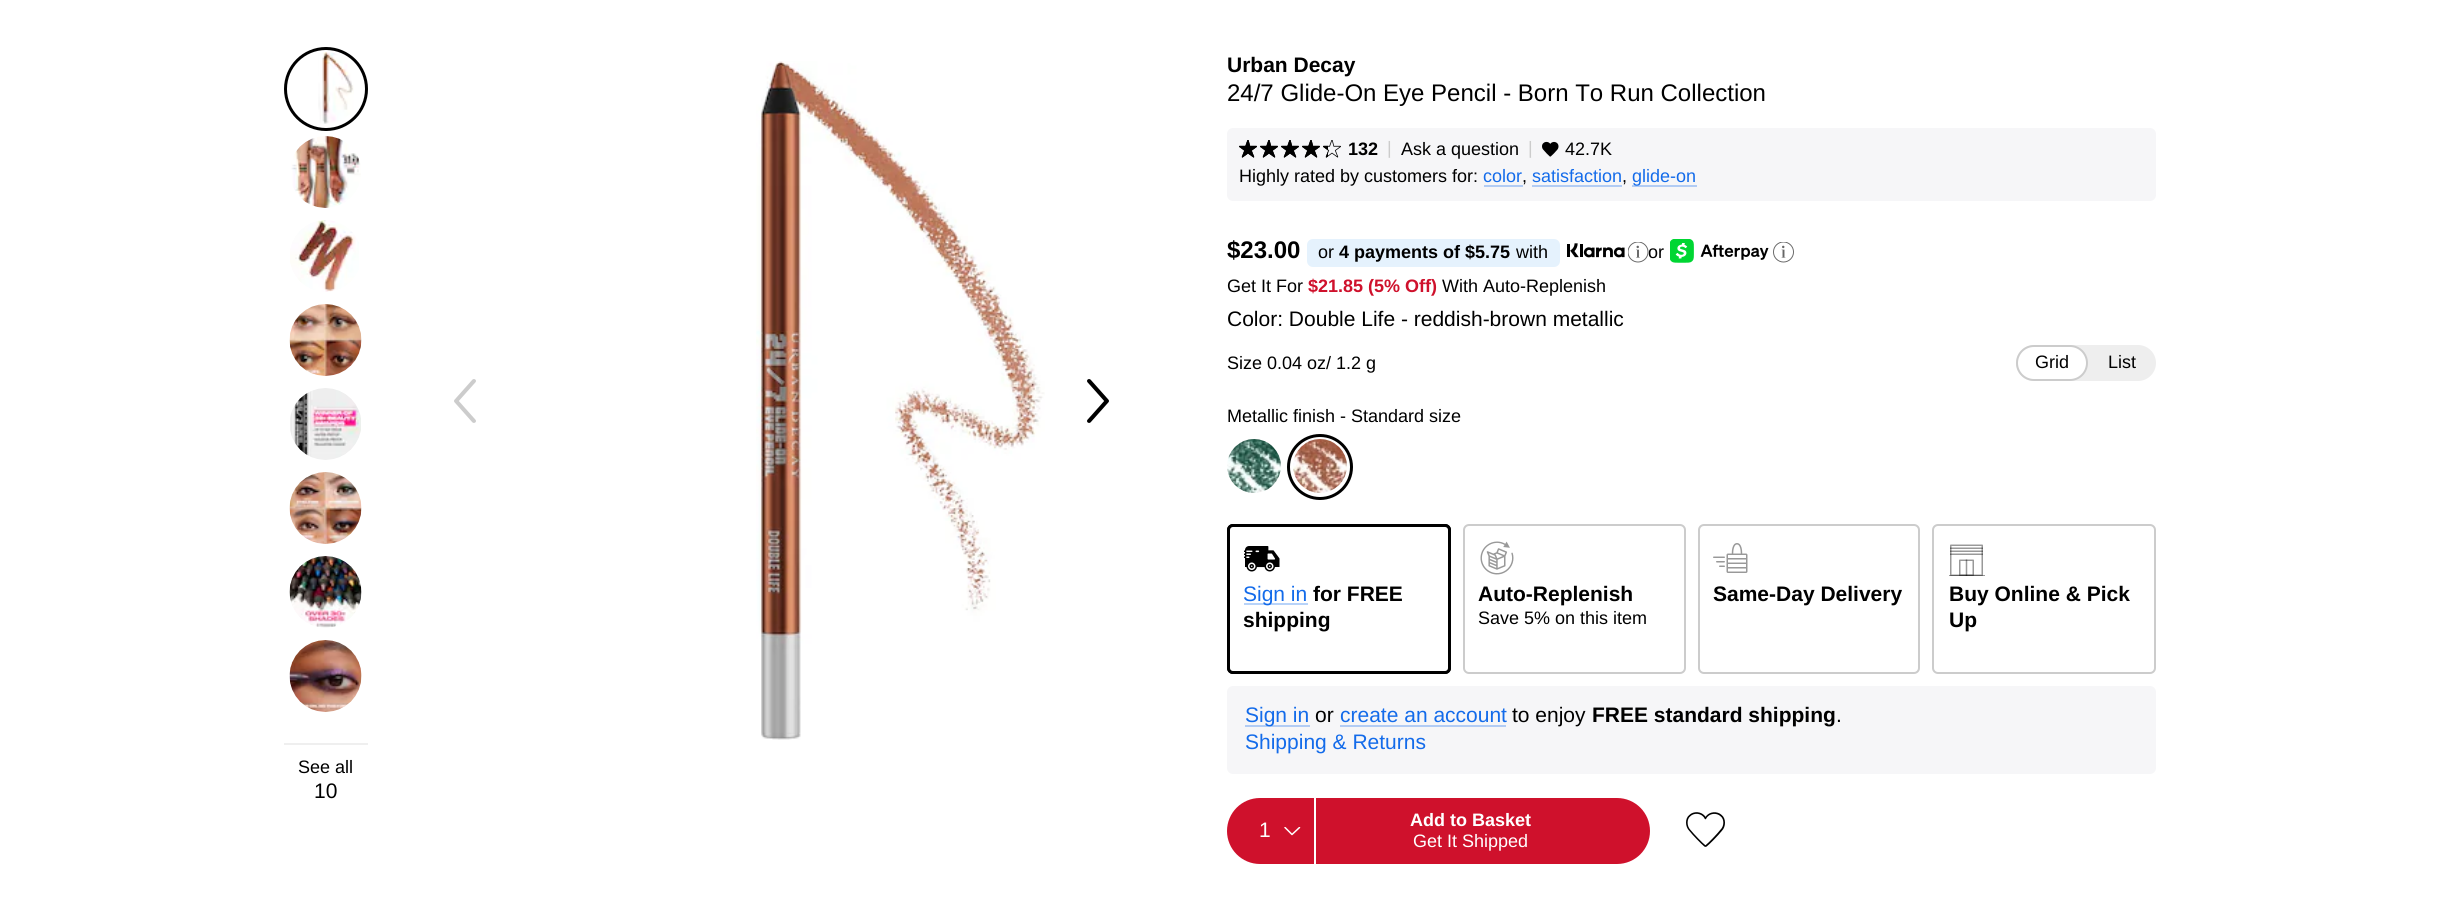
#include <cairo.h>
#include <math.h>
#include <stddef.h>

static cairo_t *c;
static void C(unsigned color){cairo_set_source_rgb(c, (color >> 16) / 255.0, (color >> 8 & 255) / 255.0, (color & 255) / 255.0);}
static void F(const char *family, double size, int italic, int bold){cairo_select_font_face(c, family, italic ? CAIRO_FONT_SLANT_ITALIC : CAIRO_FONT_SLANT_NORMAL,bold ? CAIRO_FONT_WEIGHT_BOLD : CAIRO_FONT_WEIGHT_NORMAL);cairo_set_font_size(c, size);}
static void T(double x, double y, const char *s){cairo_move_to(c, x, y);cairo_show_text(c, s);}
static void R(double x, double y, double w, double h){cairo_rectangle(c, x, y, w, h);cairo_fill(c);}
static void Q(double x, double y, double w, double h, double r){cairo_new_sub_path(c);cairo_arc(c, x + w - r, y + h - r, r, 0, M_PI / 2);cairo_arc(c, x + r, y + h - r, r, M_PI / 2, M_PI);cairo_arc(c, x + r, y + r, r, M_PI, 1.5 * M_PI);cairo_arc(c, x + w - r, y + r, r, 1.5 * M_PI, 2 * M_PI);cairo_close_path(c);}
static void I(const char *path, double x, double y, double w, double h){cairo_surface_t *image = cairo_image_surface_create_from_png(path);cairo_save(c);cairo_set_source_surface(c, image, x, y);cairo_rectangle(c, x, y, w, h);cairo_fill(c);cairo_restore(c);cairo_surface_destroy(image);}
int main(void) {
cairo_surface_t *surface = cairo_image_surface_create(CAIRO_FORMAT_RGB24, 2439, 899);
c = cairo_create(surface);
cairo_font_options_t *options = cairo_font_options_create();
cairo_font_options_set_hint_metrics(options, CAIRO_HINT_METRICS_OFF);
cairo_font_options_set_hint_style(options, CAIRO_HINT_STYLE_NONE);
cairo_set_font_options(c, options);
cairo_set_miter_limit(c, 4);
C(0xffffff);
cairo_paint(c);
F("Liberation Sans",21,0,1);
C(0x000000);
T(1227,72,"Urban Decay");
F("Liberation Sans",24,0,0);
T(1227,101,"24/7 Glide-On Eye Pencil - Born To Run Collection");
C(0xf6f6f8);
Q(1227,128,929,73,6);
cairo_fill(c);
I("1.png",1239,140,18,18);
I("1.png",1260,140,18,18);
I("1.png",1281,140,18,18);
I("1.png",1302,140,18,18);
I("1.png",1323,140,18,18);
I("2.png",1239,140,18,18);
I("2.png",1260,140,18,18);
I("2.png",1281,140,18,18);
I("2.png",1302,140,18,18);
I("3.png",1323,145,5,13);
F("Liberation Sans",18,0,1);
C(0x000000);
T(1348,155,"132");
F("Liberation Sans",18,0,0);
C(0xcccccc);
T(1387,154,"|");
C(0x000000);
T(1401,155,"Ask a question");
C(0xcccccc);
T(1528,154,"|");
I("4.png",1542,141,17,16);
C(0x000000);
T(1565,155,"42.7K");
T(1239,182,"Highly rated by customers for:");
C(0x136bea);
T(1483,182,"color");
C(0xb2ccf4);
R(1484,185,39,2);
C(0x000000);
T(1522,182,",");
C(0x136bea);
T(1532,182,"satisfaction");
C(0xb2ccf4);
R(1532,185,90,2);
C(0x000000);
T(1622,182,",");
C(0xb2ccf4);
R(1632,185,65,2);
C(0x136bea);
T(1632,182,"glide-on");
F("Liberation Sans",24,0,1);
C(0x000000);
T(1227,258,"$23.00");
C(0xe5f2fd);
Q(1307,239,253,28,6);
cairo_fill(c);
F("Liberation Sans",18,0,0);
C(0x000000);
T(1318,258,"or");
F("Liberation Sans",18,0,1);
T(1339,258,"4 payments of $5.75");
F("Liberation Sans",18,0,0);
T(1516,258,"with");
I("5.png",1567,243,58,15);
T(1648,258,"or");
I("6.png",1628,242,21,21);
I("7.png",1670,239,99,24);
I("8.png",1773,242,21,21);
T(1227,292,"Get It For");
F("Liberation Sans",18,0,1);
C(0xcf112c);
T(1308,292,"$21.85 (5% Off)");
F("Liberation Sans",18,0,0);
C(0x000000);
T(1442,292,"With Auto-Replenish");
I("9.png",454,379,22,44);
I("10.png",756,61,289,679);
I("11.png",1087,379,22,44);
cairo_arc(c,326,89,40.5,0,2 * M_PI);
cairo_set_line_width(c,3);
cairo_stroke(c);
I("12.png",318,52,36,72);
I("13.png",291,136,70,72);
I("14.png",290,220,69,72);
I("15.png",289,304,73,72);
I("16.png",290,388,71,72);
I("17.png",289,472,73,72);
I("18.png",289,556,73,72);
I("19.png",289,640,73,72);
C(0xefefef);
R(284,743,84,2);
C(0x000000);
T(298,773,"See all");
F("Liberation Sans",21,0,0);
T(314,798,"10");
T(1227,326,"Color: Double Life - reddish-brown metallic");
F("Liberation Sans",18,0,0);
T(1227,369,"Size 0.04 oz/ 1.2 g");
C(0xeeeeee);
Q(2016,345,140,36,18);
cairo_fill(c);
C(0xffffff);
Q(2017,346,70,34,17);
cairo_fill_preserve(c);
C(0xcccccc);
cairo_set_line_width(c,2);
cairo_stroke(c);
C(0x000000);
T(2035,368,"Grid");
T(2108,368,"List");
T(1227,422,"Metallic finish - Standard size");
I("20.png",1227,439,54,54);
cairo_arc(c,1320,467,31.5,0,2 * M_PI);
cairo_set_line_width(c,3);
cairo_stroke(c);
I("21.png",1293,439,54,54);
Q(1228,525,222,148,5);
cairo_set_line_width(c,2);
cairo_stroke(c);
I("22.png",1244,546,36,26);
C(0xb8d3f9);
R(1244,603,64,2);
Q(1228.5,525.5,221,147,4.5);
C(0x000000);
cairo_set_line_width(c,3);
cairo_stroke(c);
F("Liberation Sans",21,0,0);
C(0x136bea);
T(1243,601,"Sign in");
F("Liberation Sans",21,0,1);
C(0x000000);
T(1313,601,"for FREE");
T(1243,627,"shipping");
C(0xf6f6f8);
Q(1227,686,929,88,6);
cairo_fill(c);
C(0xb2ccf4);
R(1245,725,65,2);
F("Liberation Sans",21,0,0);
C(0x136bea);
T(1245,722,"Sign in");
C(0x000000);
T(1315,722,"or");
C(0x136bea);
T(1340,722,"create an account");
C(0xb2ccf4);
R(1340,725,166,2);
C(0x000000);
T(1512,722,"to enjoy");
F("Liberation Sans",21,0,1);
T(1592,722,"FREE standard shipping");
F("Liberation Sans",21,0,0);
T(1836,722,".");
C(0x136bea);
T(1245,749,"Shipping & Returns");
Q(1464,525,221,148,5);
C(0xcccccc);
cairo_set_line_width(c,2);
cairo_stroke(c);
I("23.png",1480,541,34,34);
F("Liberation Sans",21,0,1);
C(0x000000);
T(1478,601,"Auto-Replenish");
F("Liberation Sans",18,0,0);
T(1478,624,"Save 5% on this item");
Q(1699,525,220,148,5);
C(0xcccccc);
cairo_stroke(c);
I("24.png",1713,543,35,30);
F("Liberation Sans",21,0,1);
C(0x000000);
T(1713,601,"Same-Day Delivery");
Q(1933,525,222,148,5);
C(0xcccccc);
cairo_stroke(c);
I("25.png",1949,544,36,32);
C(0x000000);
T(1949,601,"Buy Online & Pick");
T(1949,627,"Up");
C(0xcf112c);
Q(1227,798,423,66,33);
cairo_fill(c);
C(0xffffff);
R(1314,798,2,66);
F("Liberation Sans",21,0,0);
T(1259,837,"1");
cairo_save(c);
cairo_rectangle(c,1284,827,17,9);
cairo_clip(c);
cairo_new_path(c);
cairo_move_to(c,1285,827.5);
cairo_line_to(c,1292,834.5);
cairo_line_to(c,1299.5,827.5);
cairo_set_line_width(c,1.5);
cairo_set_line_cap(c,CAIRO_LINE_CAP_ROUND);
cairo_set_line_join(c,CAIRO_LINE_JOIN_ROUND);
cairo_stroke(c);
cairo_restore(c);
F("Liberation Sans",18,0,1);
T(1410,826,"Add to Basket");
F("Liberation Sans",18,0,0);
T(1413,847,"Get It Shipped");
I("26.png",1686,812,39,35);
cairo_surface_write_to_png(surface, "o.png");
cairo_font_options_destroy(options);
cairo_destroy(c);
cairo_surface_destroy(surface);
return 0;
}
